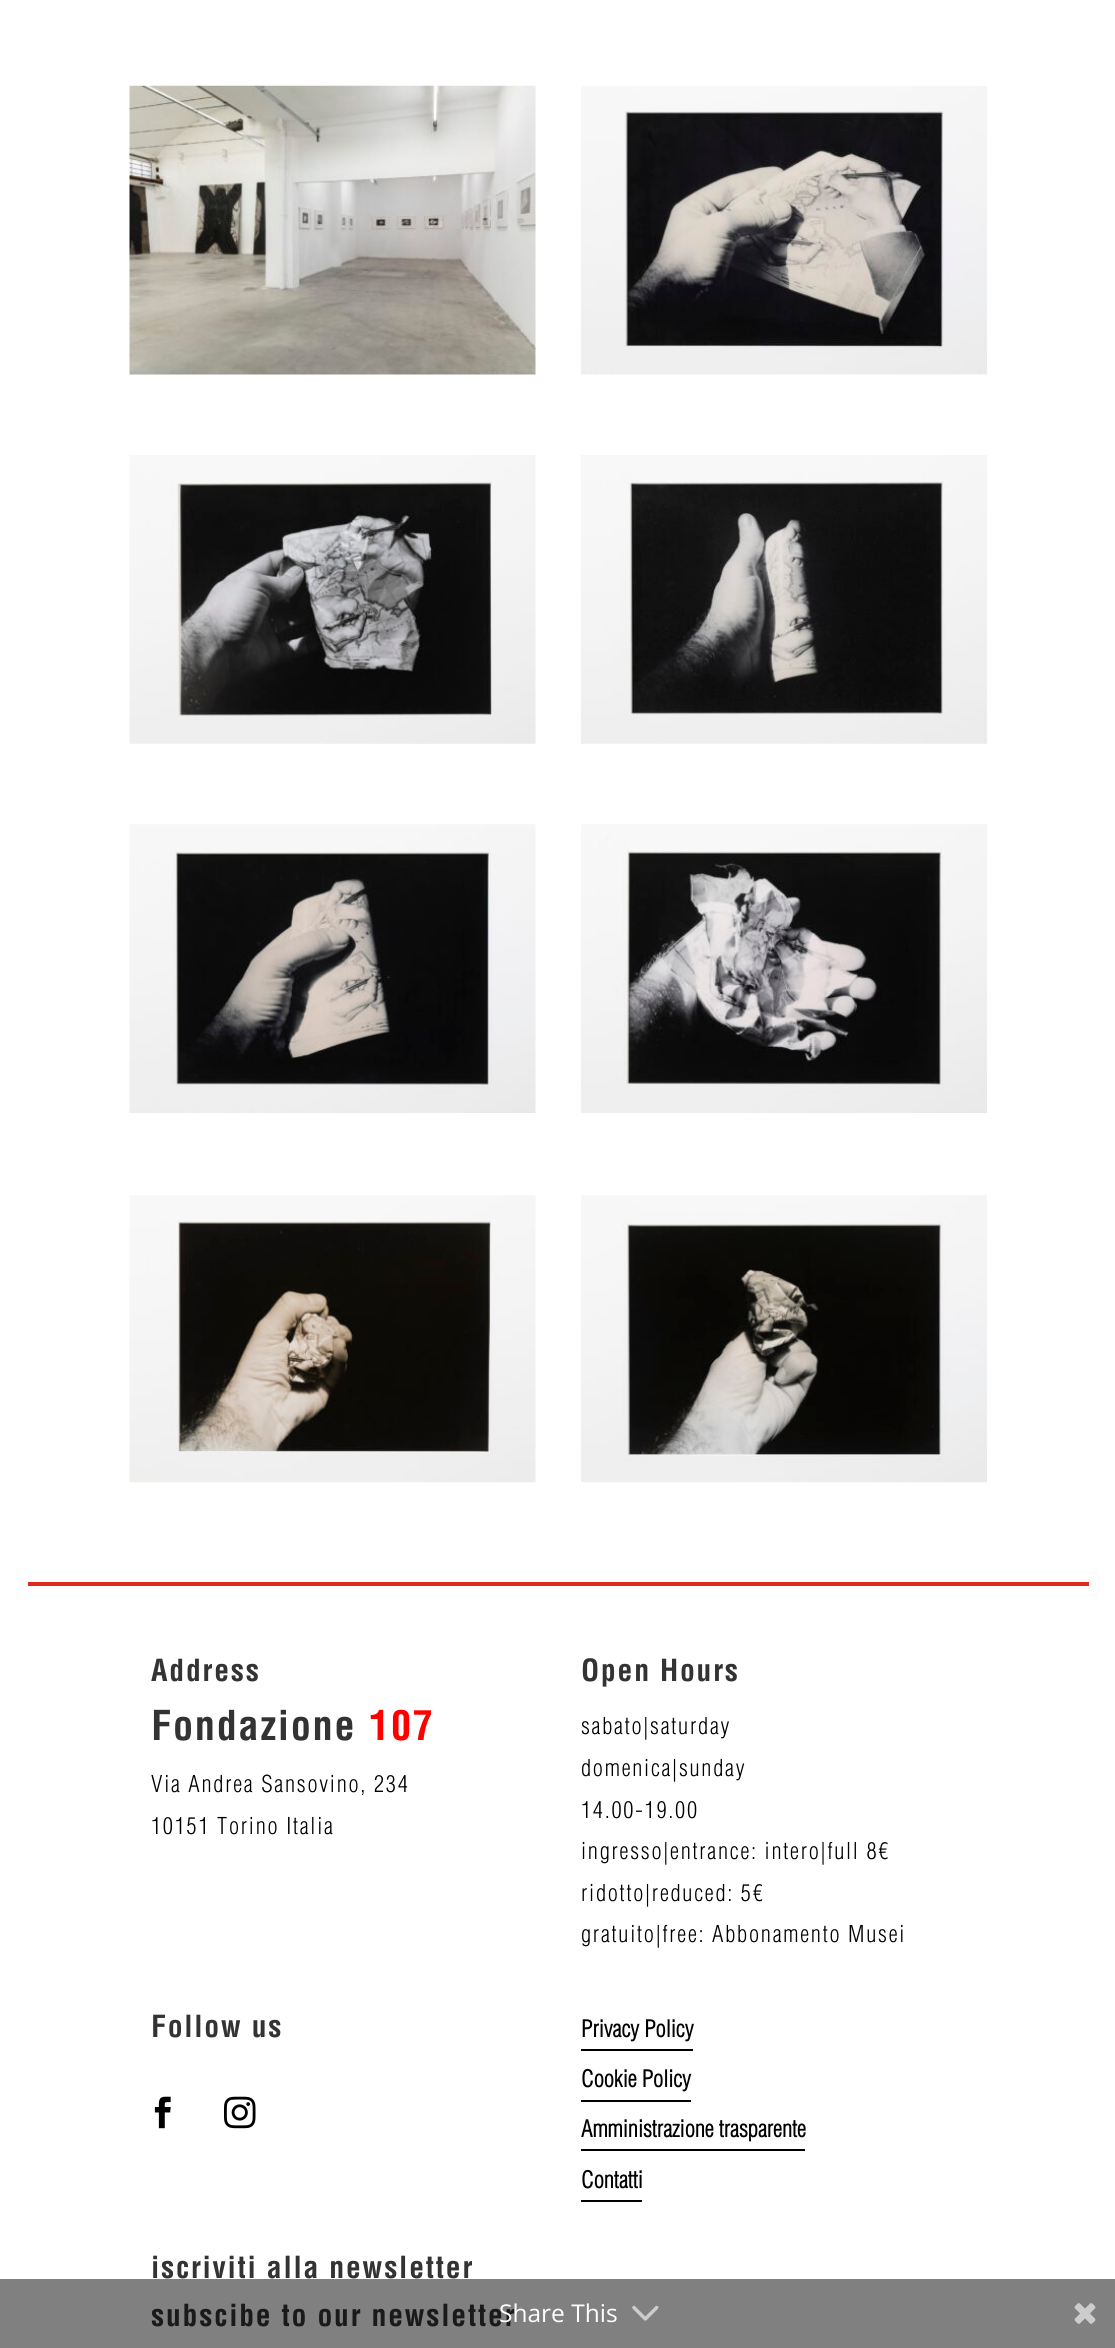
#include <cairo.h>
#include <math.h>
#include <stddef.h>

static cairo_t *c;
static void C(unsigned color){cairo_set_source_rgb(c, (color >> 16) / 255.0, (color >> 8 & 255) / 255.0, (color & 255) / 255.0);}
static void F(const char *family, double size, int italic, int bold){cairo_select_font_face(c, family, italic ? CAIRO_FONT_SLANT_ITALIC : CAIRO_FONT_SLANT_NORMAL,bold ? CAIRO_FONT_WEIGHT_BOLD : CAIRO_FONT_WEIGHT_NORMAL);cairo_set_font_size(c, size);}
static void T(double x, double y, const char *s){cairo_move_to(c, x, y);cairo_show_text(c, s);}
static void L(double x, double y, const char *s, double letter, double word){cairo_move_to(c, x, y);while (*s) {char ch[5] = {0};int n = 0;do ch[n++] = *s++; while ((*s & 0xC0) == 0x80);cairo_show_text(c, ch);cairo_rel_move_to(c, letter + word * (*ch == ' '), 0);}}
static void R(double x, double y, double w, double h){cairo_rectangle(c, x, y, w, h);cairo_fill(c);}
static void I(const char *path, double x, double y, double w, double h){cairo_surface_t *image = cairo_image_surface_create_from_png(path);cairo_save(c);cairo_set_source_surface(c, image, x, y);cairo_rectangle(c, x, y, w, h);cairo_fill(c);cairo_restore(c);cairo_surface_destroy(image);}
int main(void) {
cairo_surface_t *surface = cairo_image_surface_create(CAIRO_FORMAT_RGB24, 1115, 2348);
c = cairo_create(surface);
cairo_font_options_t *options = cairo_font_options_create();
cairo_font_options_set_hint_metrics(options, CAIRO_HINT_METRICS_OFF);
cairo_font_options_set_hint_style(options, CAIRO_HINT_STYLE_NONE);
cairo_set_font_options(c, options);
cairo_set_miter_limit(c, 4);
C(0xffffff);
cairo_paint(c);
C(0x808080);
R(0,2279,1115,69);
I("1.png",129,85,407,290);
I("2.png",581,86,406,289);
I("3.png",129,455,407,289);
I("4.png",581,455,406,289);
I("5.png",129,824,407,289);
I("6.png",581,824,406,289);
I("7.png",129,1195,407,288);
I("8.png",581,1195,406,288);
C(0xe02b20);
R(28,1582,1061,4);
F("Helvetica",29.75,0,1);
C(0x333333);
L(151,1681,"Address",1.75,0);
F("Helvetica",40.25,0,1);
L(151,1740,"Fondazione",1.75,0);
C(0xff0000);
L(369,1740,"107",1.75,0);
F("Helvetica Light",22.75,0,0);
C(0x000000);
L(151,1792,"Via Andrea Sansovino, 234",1.75,0);
L(151,1834,"10151 Torino Italia",1.75,0);
F("Helvetica",29.75,0,1);
C(0x333333);
L(581,1681,"Open Hours",1.75,0);
F("Helvetica Light",22.75,0,0);
C(0x000000);
L(581,1734,"sabato|saturday",1.75,0);
L(581,1776,"domenica|sunday",1.75,0);
L(581,1818,"14.00-19.00",1.75,0);
L(581,1859,"ingresso|entrance: intero|full 8€",1.75,0);
L(581,1901,"ridotto|reduced: 5€",1.75,0);
L(581,1942,"gratuito|free: Abbonamento Musei",1.75,0);
F("Helvetica",29.75,0,1);
C(0x333333);
L(151,2037,"Follow us",1.75,0);
I("9.png",154,2096,17,33);
I("10.png",224,2096,32,33);
C(0x000000);
R(581,2049,112,2);
F("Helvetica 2",22.75,0,1);
T(581,2037,"Privacy Policy");
R(581,2100,110,2);
T(581,2087,"Cookie Policy");
R(581,2149,224,2);
T(581,2137,"Amministrazione trasparente");
R(581,2200,61,2);
T(581,2188,"Contatti");
F("Helvetica",29.75,0,1);
C(0x333333);
L(151,2278,"iscriviti alla newsletter",1.75,0);
C(0x1a1a1a);
L(151,2326,"subscibe to our newsletter",1.75,0);
F("Open Sans",24.5,0,0);
C(0xffffff);
T(499,2322,"Share This");
I("11.png",632,2305,27,16);
I("12.png",1074,2303,22,21);
cairo_surface_write_to_png(surface, "o.png");
cairo_font_options_destroy(options);
cairo_destroy(c);
cairo_surface_destroy(surface);
return 0;
}
